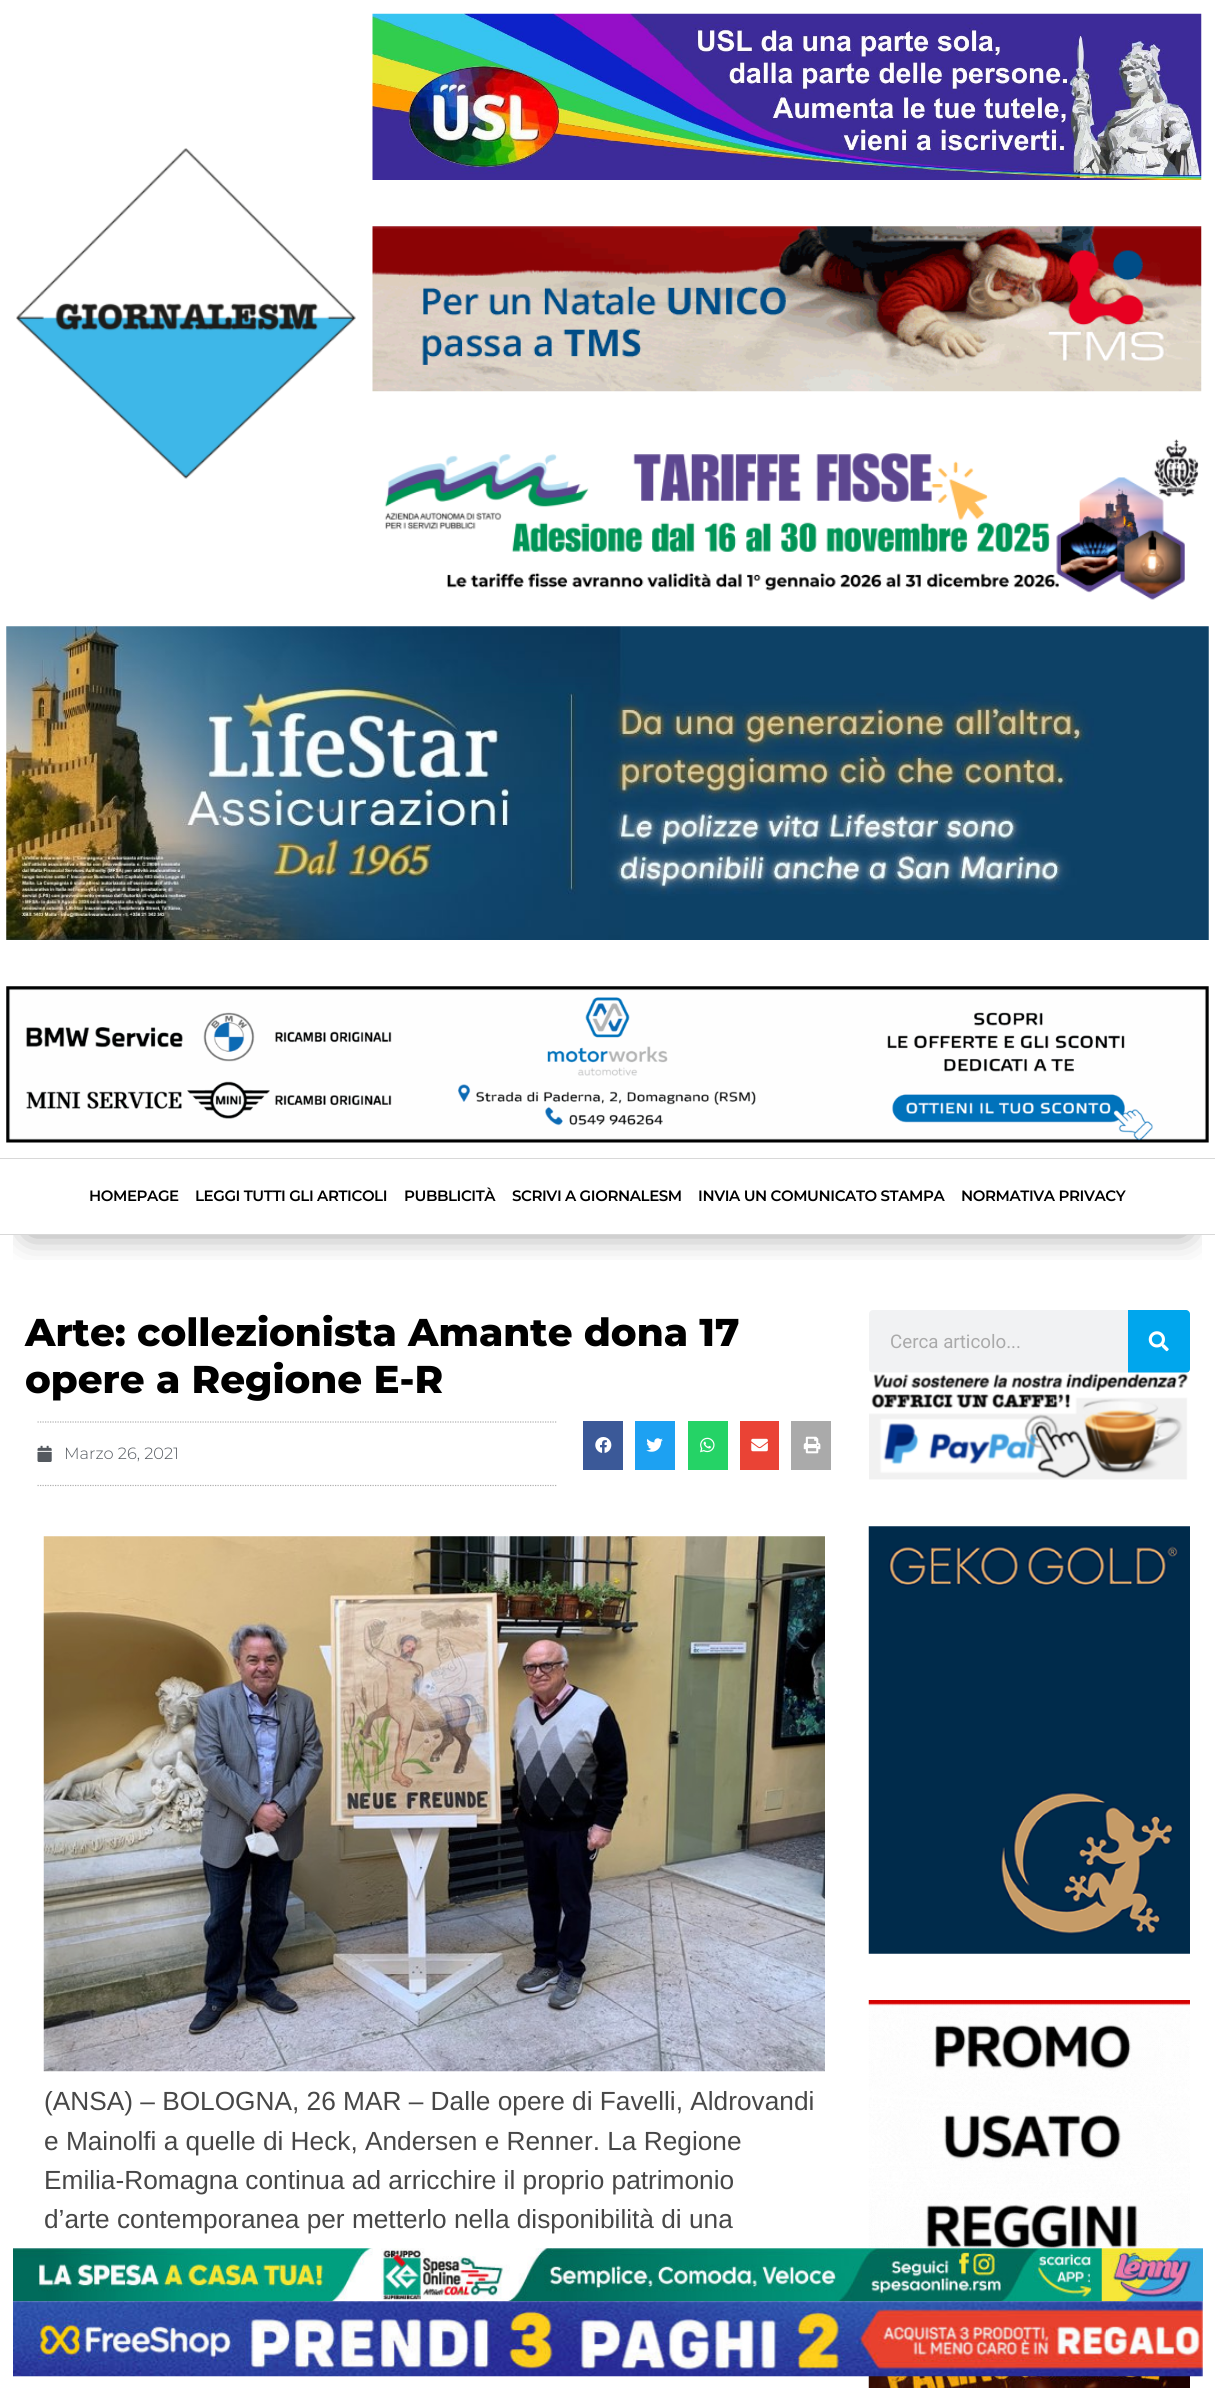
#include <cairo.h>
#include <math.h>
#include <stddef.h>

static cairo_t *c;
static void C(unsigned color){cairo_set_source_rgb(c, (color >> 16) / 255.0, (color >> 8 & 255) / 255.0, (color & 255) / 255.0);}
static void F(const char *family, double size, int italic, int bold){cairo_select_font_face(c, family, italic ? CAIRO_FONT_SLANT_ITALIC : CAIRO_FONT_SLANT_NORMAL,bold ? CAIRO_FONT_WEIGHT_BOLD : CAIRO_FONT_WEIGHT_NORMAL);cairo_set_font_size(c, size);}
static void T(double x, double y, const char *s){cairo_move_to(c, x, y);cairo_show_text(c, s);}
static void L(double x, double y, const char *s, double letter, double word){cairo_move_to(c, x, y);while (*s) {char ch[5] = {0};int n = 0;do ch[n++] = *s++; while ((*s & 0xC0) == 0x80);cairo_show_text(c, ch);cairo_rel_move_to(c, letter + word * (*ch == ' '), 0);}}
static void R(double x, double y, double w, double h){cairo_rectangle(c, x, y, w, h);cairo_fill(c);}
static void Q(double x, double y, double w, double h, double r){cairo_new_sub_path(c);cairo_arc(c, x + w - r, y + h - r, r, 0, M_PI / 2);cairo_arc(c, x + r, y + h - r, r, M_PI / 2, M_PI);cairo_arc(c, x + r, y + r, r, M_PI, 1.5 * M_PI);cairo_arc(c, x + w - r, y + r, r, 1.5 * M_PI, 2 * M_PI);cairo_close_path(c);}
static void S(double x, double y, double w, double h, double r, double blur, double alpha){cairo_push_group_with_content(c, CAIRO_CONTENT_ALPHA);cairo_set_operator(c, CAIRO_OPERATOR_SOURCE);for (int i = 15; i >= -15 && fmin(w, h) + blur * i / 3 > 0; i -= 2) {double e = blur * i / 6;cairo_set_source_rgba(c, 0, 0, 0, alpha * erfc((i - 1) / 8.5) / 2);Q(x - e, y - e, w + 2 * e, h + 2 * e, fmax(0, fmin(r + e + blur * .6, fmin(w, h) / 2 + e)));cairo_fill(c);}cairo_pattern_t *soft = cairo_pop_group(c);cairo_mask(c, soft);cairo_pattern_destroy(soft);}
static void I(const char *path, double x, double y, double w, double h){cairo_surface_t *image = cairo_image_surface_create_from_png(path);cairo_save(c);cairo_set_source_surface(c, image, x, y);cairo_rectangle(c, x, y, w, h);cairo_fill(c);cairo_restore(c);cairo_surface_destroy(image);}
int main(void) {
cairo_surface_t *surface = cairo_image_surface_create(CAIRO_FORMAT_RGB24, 1215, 2388);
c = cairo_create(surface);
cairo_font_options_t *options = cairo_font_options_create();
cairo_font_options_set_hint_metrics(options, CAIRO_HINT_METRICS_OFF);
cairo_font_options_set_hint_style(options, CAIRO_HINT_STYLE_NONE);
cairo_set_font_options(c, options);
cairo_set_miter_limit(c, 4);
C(0xffffff);
cairo_paint(c);
I("1.png",16,148,340,331);
I("2.png",372,13,830,167);
I("3.png",372,226,830,166);
I("4.png",384,439,815,161);
I("5.png",6,626,1203,314);
I("6.png",6,986,1203,157);
cairo_save(c);
cairo_rectangle(c,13,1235,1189,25);
cairo_clip(c);
C(0x000000);
S(31,1215,1153,15,0,17.5,.5);
cairo_restore(c);
C(0xd8d8d8);
R(0,1158,1215,1);
R(0,1234,1215,1);
F("Montserrat SemiBold",15,0,0);
C(0x000000);
L(89,1201,"HOMEPAGE",-.4,0);
L(195,1201,"LEGGI TUTTI GLI ARTICOLI",-.4,0);
L(404,1201,"PUBBLICITÀ",-.4,0);
L(512,1201,"SCRIVI A GIORNALESM",-.4,0);
L(698,1201,"INVIA UN COMUNICATO STAMPA",-.4,0);
L(961,1201,"NORMATIVA PRIVACY",-.4,0);
F("Montserrat ExtraBold",38.75,0,0);
T(25,1346,"Arte: collezionista Amante dona 17");
T(25,1393,"opere a Regione E-R");
cairo_new_path(c);
cairo_move_to(c,37.5,1422);
cairo_line_to(c,557.5,1422);
C(0xafafaf);
cairo_set_line_width(c,1.2);
cairo_set_dash(c,(double[]){1.25,1.25},2,0);
cairo_stroke(c);
cairo_new_path(c);
cairo_move_to(c,37.5,1485.5);
cairo_line_to(c,557.5,1485.5);
cairo_stroke(c);
I("7.png",37,1445,15,17);
F("Montserrat Light",16.25,0,0);
C(0x54595f);
T(64,1459,"Marzo 26, 2021");
C(0x3b5998);
R(583,1421,40,49);
I("8.png",595,1437,17,16);
C(0x1da1f2);
R(635,1421,40,49);
I("9.png",646,1438,17,14);
C(0x25d366);
R(688,1421,40,49);
I("10.png",700,1437,15,16);
C(0xea4335);
R(740,1421,39,49);
I("11.png",751,1438,17,14);
C(0xaaaaaa);
R(791,1421,40,49);
I("12.png",803,1436,18,18);
I("13.png",43,1536,782,536);
F("Liberation Sans",26.25,0,0);
C(0x474747);
T(44,2110,"(ANSA) – BOLOGNA, 26 MAR – Dalle opere di Favelli, Aldrovandi");
T(44,2150,"e Mainolfi a quelle di Heck, Andersen e Renner. La Regione");
T(44,2189,"Emilia-Romagna continua ad arricchire il proprio patrimonio");
T(44,2228,"d’arte contemporanea per metterlo nella disponibilità di una");
C(0xf1f2f3);
Q(869,1310,321,63,4);
cairo_fill(c);
F("Roboto",18.75,0,0);
C(0xaaaaaa);
T(890,1348,"Cerca articolo...");
C(0x00a6ed);
cairo_new_path(c);
cairo_move_to(c,1128,1310);
cairo_line_to(c,1186,1310);
cairo_curve_to(c,1188,1310,1190,1312,1190,1314);
cairo_line_to(c,1190,1369);
cairo_curve_to(c,1190,1371,1188,1373,1186,1373);
cairo_line_to(c,1128,1373);
cairo_close_path(c);
cairo_fill(c);
I("14.png",1148,1331,21,21);
I("15.png",869,1372,320,108);
I("16.png",868,1526,322,428);
I("17.png",868,2000,322,248);
I("18.png",868,2376,322,12);
I("19.png",13,2248,1190,54);
I("20.png",13,2301,1190,76);
cairo_surface_write_to_png(surface, "o.png");
cairo_font_options_destroy(options);
cairo_destroy(c);
cairo_surface_destroy(surface);
return 0;
}
